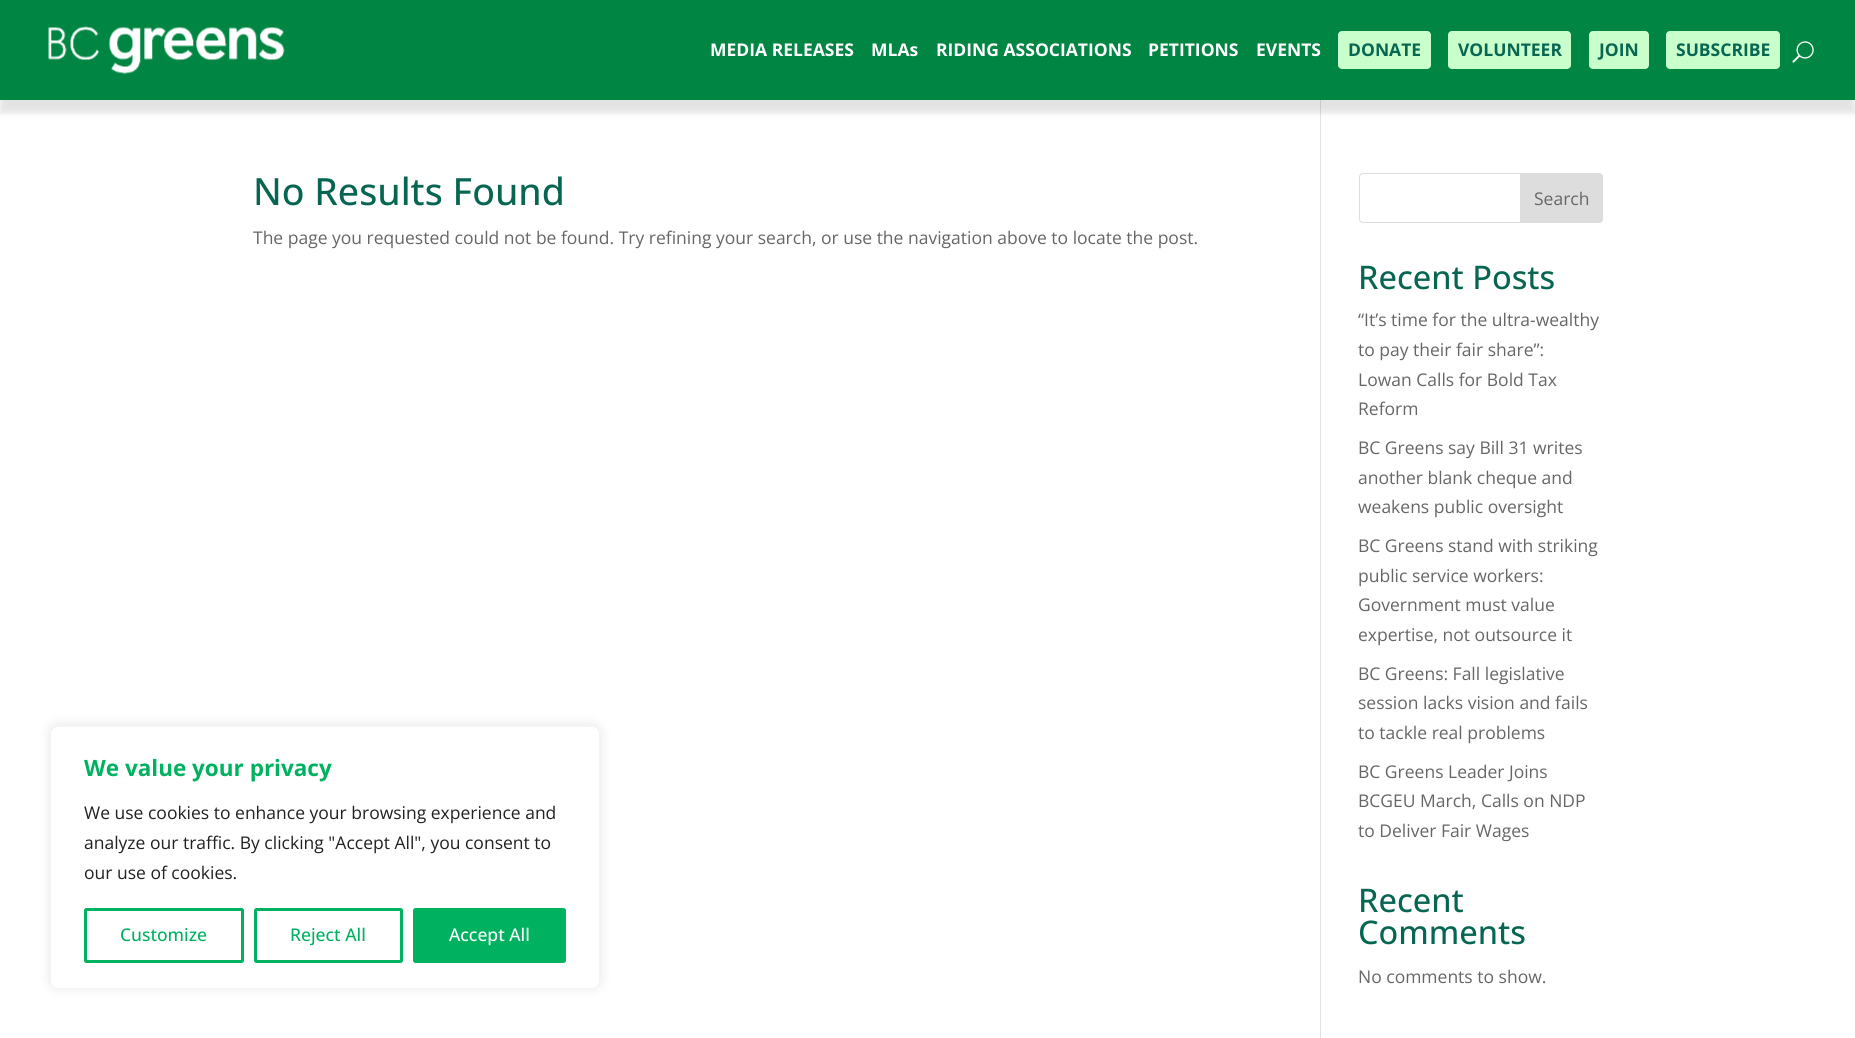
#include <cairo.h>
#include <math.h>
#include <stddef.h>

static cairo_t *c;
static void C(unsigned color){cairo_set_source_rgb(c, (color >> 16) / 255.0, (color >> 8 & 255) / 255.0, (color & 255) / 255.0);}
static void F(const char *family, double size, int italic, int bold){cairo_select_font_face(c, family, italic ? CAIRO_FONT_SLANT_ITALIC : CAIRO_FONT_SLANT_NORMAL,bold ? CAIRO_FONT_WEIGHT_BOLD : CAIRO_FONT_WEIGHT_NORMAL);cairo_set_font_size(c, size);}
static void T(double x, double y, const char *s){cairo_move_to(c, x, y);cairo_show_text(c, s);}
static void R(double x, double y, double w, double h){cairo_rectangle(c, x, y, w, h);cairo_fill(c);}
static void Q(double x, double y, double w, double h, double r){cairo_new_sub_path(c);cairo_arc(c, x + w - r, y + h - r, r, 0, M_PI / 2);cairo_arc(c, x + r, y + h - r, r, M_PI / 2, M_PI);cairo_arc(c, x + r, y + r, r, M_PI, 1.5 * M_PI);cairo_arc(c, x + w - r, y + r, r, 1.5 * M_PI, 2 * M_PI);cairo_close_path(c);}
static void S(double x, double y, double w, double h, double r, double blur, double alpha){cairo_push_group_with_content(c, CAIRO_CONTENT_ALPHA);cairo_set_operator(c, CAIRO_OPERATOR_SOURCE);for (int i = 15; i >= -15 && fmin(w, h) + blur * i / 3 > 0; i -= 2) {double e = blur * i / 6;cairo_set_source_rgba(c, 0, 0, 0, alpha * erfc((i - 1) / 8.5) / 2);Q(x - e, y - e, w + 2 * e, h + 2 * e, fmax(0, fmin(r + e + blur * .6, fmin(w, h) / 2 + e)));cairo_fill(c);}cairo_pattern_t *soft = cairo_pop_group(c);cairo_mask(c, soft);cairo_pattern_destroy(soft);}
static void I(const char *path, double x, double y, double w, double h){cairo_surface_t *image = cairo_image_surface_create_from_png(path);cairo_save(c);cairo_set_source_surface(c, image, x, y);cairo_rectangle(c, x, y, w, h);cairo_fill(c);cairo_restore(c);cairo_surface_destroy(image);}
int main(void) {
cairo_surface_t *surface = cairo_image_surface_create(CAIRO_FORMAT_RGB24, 1855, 1038);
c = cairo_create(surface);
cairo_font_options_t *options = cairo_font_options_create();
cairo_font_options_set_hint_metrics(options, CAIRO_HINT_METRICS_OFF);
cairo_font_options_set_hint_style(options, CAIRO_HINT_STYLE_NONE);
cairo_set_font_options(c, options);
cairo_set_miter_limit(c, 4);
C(0xffffff);
cairo_paint(c);
C(0xe2e2e2);
R(1320,100,1,938);
C(0x000000);
S(0,13,1855,100,0,3,.11);
C(0x008542);
R(0,0,1855,100);
I("1.png",48,26,237,48);
F("Open Sans",17.5,0,1);
C(0xffffff);
T(710,56,"MEDIA RELEASES");
T(871,56,"MLAs");
T(936,56,"RIDING ASSOCIATIONS");
T(1148,56,"PETITIONS");
T(1256,56,"EVENTS");
C(0xc9ffca);
Q(1338,31,93,38,4);
cairo_fill(c);
C(0x076651);
T(1348,56,"DONATE");
C(0xc9ffca);
Q(1448,31,123,38,4);
cairo_fill(c);
C(0x076651);
T(1458,56,"VOLUNTEER");
C(0xc9ffca);
Q(1589,31,60,38,4);
cairo_fill(c);
C(0x076651);
T(1599,56,"JOIN");
C(0xc9ffca);
Q(1666,31,114,38,4);
cairo_fill(c);
C(0x076651);
T(1676,56,"SUBSCRIBE");
I("2.png",1792,41,22,22);
F("Open Sans Medium",37.5,0,0);
T(253,205,"No Results Found");
F("Open Sans",17.5,0,0);
C(0x666666);
T(253,244,"The page you requested could not be found. Try refining your search, or use the navigation above to locate the post.");
Q(1359.5,173.5,243,49,3.5);
C(0xdddddd);
cairo_set_line_width(c,1);
cairo_stroke(c);
cairo_new_path(c);
cairo_move_to(c,1520.5,173.5);
cairo_line_to(c,1599,173.5);
cairo_curve_to(c,1601,173.5,1602.5,175,1602.5,177);
cairo_line_to(c,1602.5,219);
cairo_curve_to(c,1602.5,221,1601,222.5,1599,222.5);
cairo_line_to(c,1520.5,222.5);
cairo_close_path(c);
cairo_fill_preserve(c);
cairo_stroke(c);
C(0x666666);
T(1534,205,"Search");
F("Open Sans Medium",32.5,0,0);
C(0x076651);
T(1358,289,"Recent Posts");
F("Open Sans",17.5,0,0);
C(0x666666);
T(1358,326,"“It’s time for the ultra-wealthy");
T(1358,356,"to pay their fair share”:");
T(1358,386,"Lowan Calls for Bold Tax");
T(1358,415,"Reform");
T(1358,454,"BC Greens say Bill 31 writes");
T(1358,484,"another blank cheque and");
T(1358,513,"weakens public oversight");
T(1358,552,"BC Greens stand with striking");
T(1358,582,"public service workers:");
T(1358,611,"Government must value");
T(1358,641,"expertise, not outsource it");
T(1358,680,"BC Greens: Fall legislative");
T(1358,709,"session lacks vision and fails");
T(1358,739,"to tackle real problems");
T(1358,778,"BC Greens Leader Joins");
T(1358,807,"BCGEU March, Calls on NDP");
T(1358,837,"to Deliver Fair Wages");
F("Open Sans Medium",32.5,0,0);
C(0x076651);
T(1358,912,"Recent");
T(1358,944,"Comments");
F("Open Sans",17.5,0,0);
C(0x666666);
T(1358,983,"No comments to show.");
C(0xacabab);
S(50,725,550,263,8,6,.3);
C(0xffffff);
Q(50.5,726.5,549,262,7.5);
cairo_fill_preserve(c);
C(0xf4f4f4);
cairo_stroke(c);
F("Open Sans",22.5,0,1);
C(0x00b25f);
T(84,776,"We value your privacy");
F("Open Sans",17.5,0,0);
C(0x212121);
T(84,819,"We use cookies to enhance your browsing experience and");
T(84,849,"analyze our traffic. By clicking \"Accept All\", you consent to");
T(84,879,"our use of cookies.");
Q(85.5,909.5,157,52,1);
C(0x00b25f);
cairo_set_line_width(c,3);
cairo_stroke(c);
F("Open Sans Medium",17.5,0,0);
T(120,941,"Customize");
Q(255.5,909.5,146,52,1);
cairo_stroke(c);
T(290,941,"Reject All");
Q(414.5,909.5,150,52,1);
cairo_fill_preserve(c);
cairo_stroke(c);
C(0xffffff);
T(449,941,"Accept All");
cairo_surface_write_to_png(surface, "o.png");
cairo_font_options_destroy(options);
cairo_destroy(c);
cairo_surface_destroy(surface);
return 0;
}
